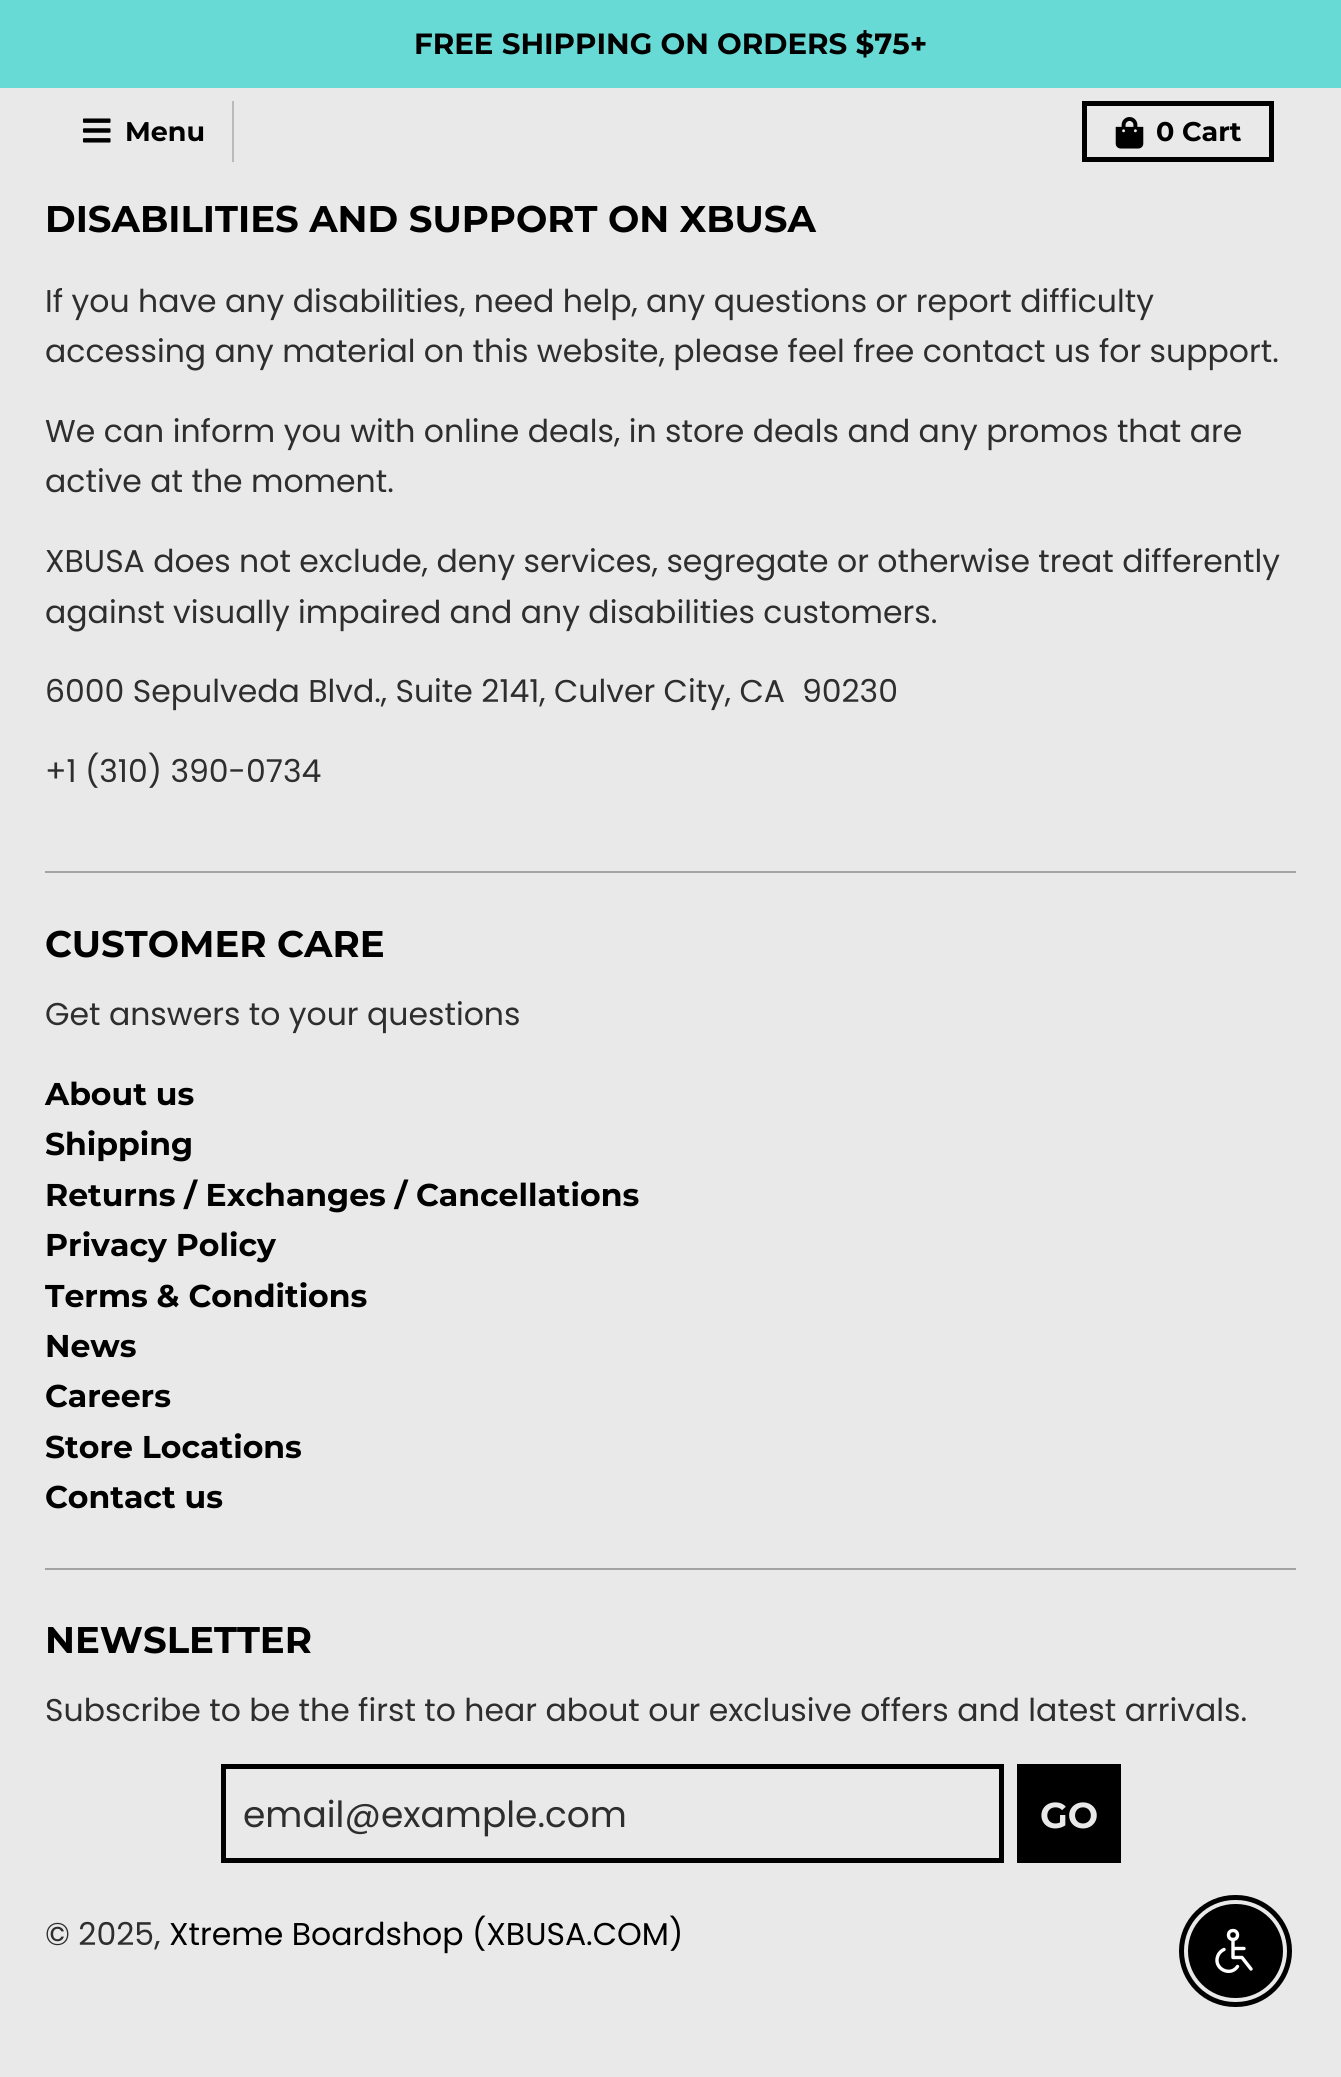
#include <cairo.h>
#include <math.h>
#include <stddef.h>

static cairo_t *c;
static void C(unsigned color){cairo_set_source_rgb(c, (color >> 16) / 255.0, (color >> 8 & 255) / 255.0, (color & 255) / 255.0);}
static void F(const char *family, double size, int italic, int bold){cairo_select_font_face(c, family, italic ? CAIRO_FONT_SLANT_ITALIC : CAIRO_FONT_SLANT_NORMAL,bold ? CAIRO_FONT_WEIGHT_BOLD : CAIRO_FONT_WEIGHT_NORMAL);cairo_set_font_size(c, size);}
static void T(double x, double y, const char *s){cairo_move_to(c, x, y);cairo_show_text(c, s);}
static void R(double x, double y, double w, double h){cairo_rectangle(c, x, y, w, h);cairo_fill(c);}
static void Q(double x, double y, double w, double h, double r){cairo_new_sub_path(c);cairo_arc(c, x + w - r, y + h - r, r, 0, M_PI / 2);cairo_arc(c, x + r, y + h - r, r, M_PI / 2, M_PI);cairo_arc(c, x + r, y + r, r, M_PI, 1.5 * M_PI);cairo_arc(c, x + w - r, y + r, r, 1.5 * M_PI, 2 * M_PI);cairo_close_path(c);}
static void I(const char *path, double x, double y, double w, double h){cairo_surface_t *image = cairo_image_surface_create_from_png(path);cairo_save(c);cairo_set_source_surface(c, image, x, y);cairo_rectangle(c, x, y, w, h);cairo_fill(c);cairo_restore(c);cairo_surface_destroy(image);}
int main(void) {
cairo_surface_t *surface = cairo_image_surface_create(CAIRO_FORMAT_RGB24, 1341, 2077);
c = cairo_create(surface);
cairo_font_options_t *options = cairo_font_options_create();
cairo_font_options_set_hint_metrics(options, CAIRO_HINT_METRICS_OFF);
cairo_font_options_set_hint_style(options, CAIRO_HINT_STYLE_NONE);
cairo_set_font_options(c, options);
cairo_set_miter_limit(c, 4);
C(0xe9e9e9);
cairo_paint(c);
C(0x67dad5);
R(0,0,1341,88);
F("Montserrat",29.25,0,1);
C(0x000000);
T(414,54,"FREE SHIPPING ON ORDERS $75+");
C(0xbababa);
R(232,101,2,61);
I("1.png",82,118,29,25);
F("Montserrat",27,0,1);
C(0x000000);
T(125,141,"Menu");
cairo_rectangle(c,1084.5,103.5,187,56);
cairo_set_line_width(c,5);
cairo_stroke(c);
I("2.png",1115,117,29,32);
T(1156,141,"0 Cart");
F("Montserrat",37.1,0,1);
T(45,232,"DISABILITIES AND SUPPORT ON XBUSA");
C(0xa3a3a3);
R(45,871,1251,2);
F("Poppins",31.5,0,0);
C(0x2e2e2e);
T(45,312,"If you have any disabilities, need help, any questions or report difficulty");
T(45,362,"accessing any material on this website, please feel free contact us for support.");
T(45,442,"We can inform you with online deals, in store deals and any promos that are");
T(45,492,"active at the moment.");
T(45,572,"XBUSA does not exclude, deny services, segregate or otherwise treat differently");
T(45,623,"against visually impaired and any disabilities customers.");
T(45,702,"6000 Sepulveda Blvd., Suite 2141, Culver City, CA  90230");
T(45,782,"+1 (310) 390-0734");
F("Montserrat",37.1,0,1);
C(0x000000);
T(45,957,"CUSTOMER CARE");
F("Poppins",31.5,0,0);
C(0x2e2e2e);
T(45,1025,"Get answers to your questions");
C(0xa3a3a3);
R(45,1568,1251,2);
F("Montserrat",31.5,0,1);
C(0x000000);
T(45,1105,"About us");
T(45,1155,"Shipping");
T(45,1206,"Returns / Exchanges / Cancellations");
T(45,1256,"Privacy Policy");
T(45,1307,"Terms & Conditions");
T(45,1357,"News");
T(45,1407,"Careers");
T(45,1458,"Store Locations");
T(45,1508,"Contact us");
F("Montserrat",37.1,0,1);
T(45,1653,"NEWSLETTER");
F("Poppins",31.5,0,0);
C(0x2e2e2e);
T(45,1721,"Subscribe to be the first to hear about our exclusive offers and latest arrivals.");
cairo_rectangle(c,223.5,1766.5,778,94);
C(0x000000);
cairo_stroke(c);
F("Poppins",36,0,0);
C(0x2e2e2e);
T(243,1827,"email@example.com");
C(0x000000);
R(1017,1764,104,99);
F("Montserrat",36,0,1);
C(0xe9e9e9);
T(1040,1828,"GO");
F("Poppins",31.5,0,0);
C(0x2e2e2e);
T(45,1945,"© 2025,");
C(0x000000);
T(169,1945,"Xtreme Boardshop (XBUSA.COM)");
Q(1181.5,1897.5,108,107,53.5);
cairo_stroke(c);
Q(1189,1905,93,92,46);
cairo_fill_preserve(c);
cairo_set_line_width(c,2);
cairo_stroke(c);
cairo_arc(c,1233,1935,4.5,0,2 * M_PI);
C(0xffffff);
cairo_set_line_width(c,3.4);
cairo_stroke(c);
cairo_new_path(c);
cairo_move_to(c,1233,1939.5);
cairo_line_to(c,1233,1957.5);
cairo_line_to(c,1242,1957.5);
cairo_line_to(c,1251,1969);
cairo_move_to(c,1233,1948.5);
cairo_line_to(c,1244,1948.5);
cairo_move_to(c,1224,1949.5);
cairo_curve_to(c,1221.5,1950.5,1219,1953,1218,1955.5);
cairo_curve_to(c,1212.5,1968,1230,1977.5,1237.5,1966.5);
cairo_set_line_cap(c,CAIRO_LINE_CAP_ROUND);
cairo_set_line_join(c,CAIRO_LINE_JOIN_ROUND);
cairo_stroke(c);
cairo_surface_write_to_png(surface, "o.png");
cairo_font_options_destroy(options);
cairo_destroy(c);
cairo_surface_destroy(surface);
return 0;
}
